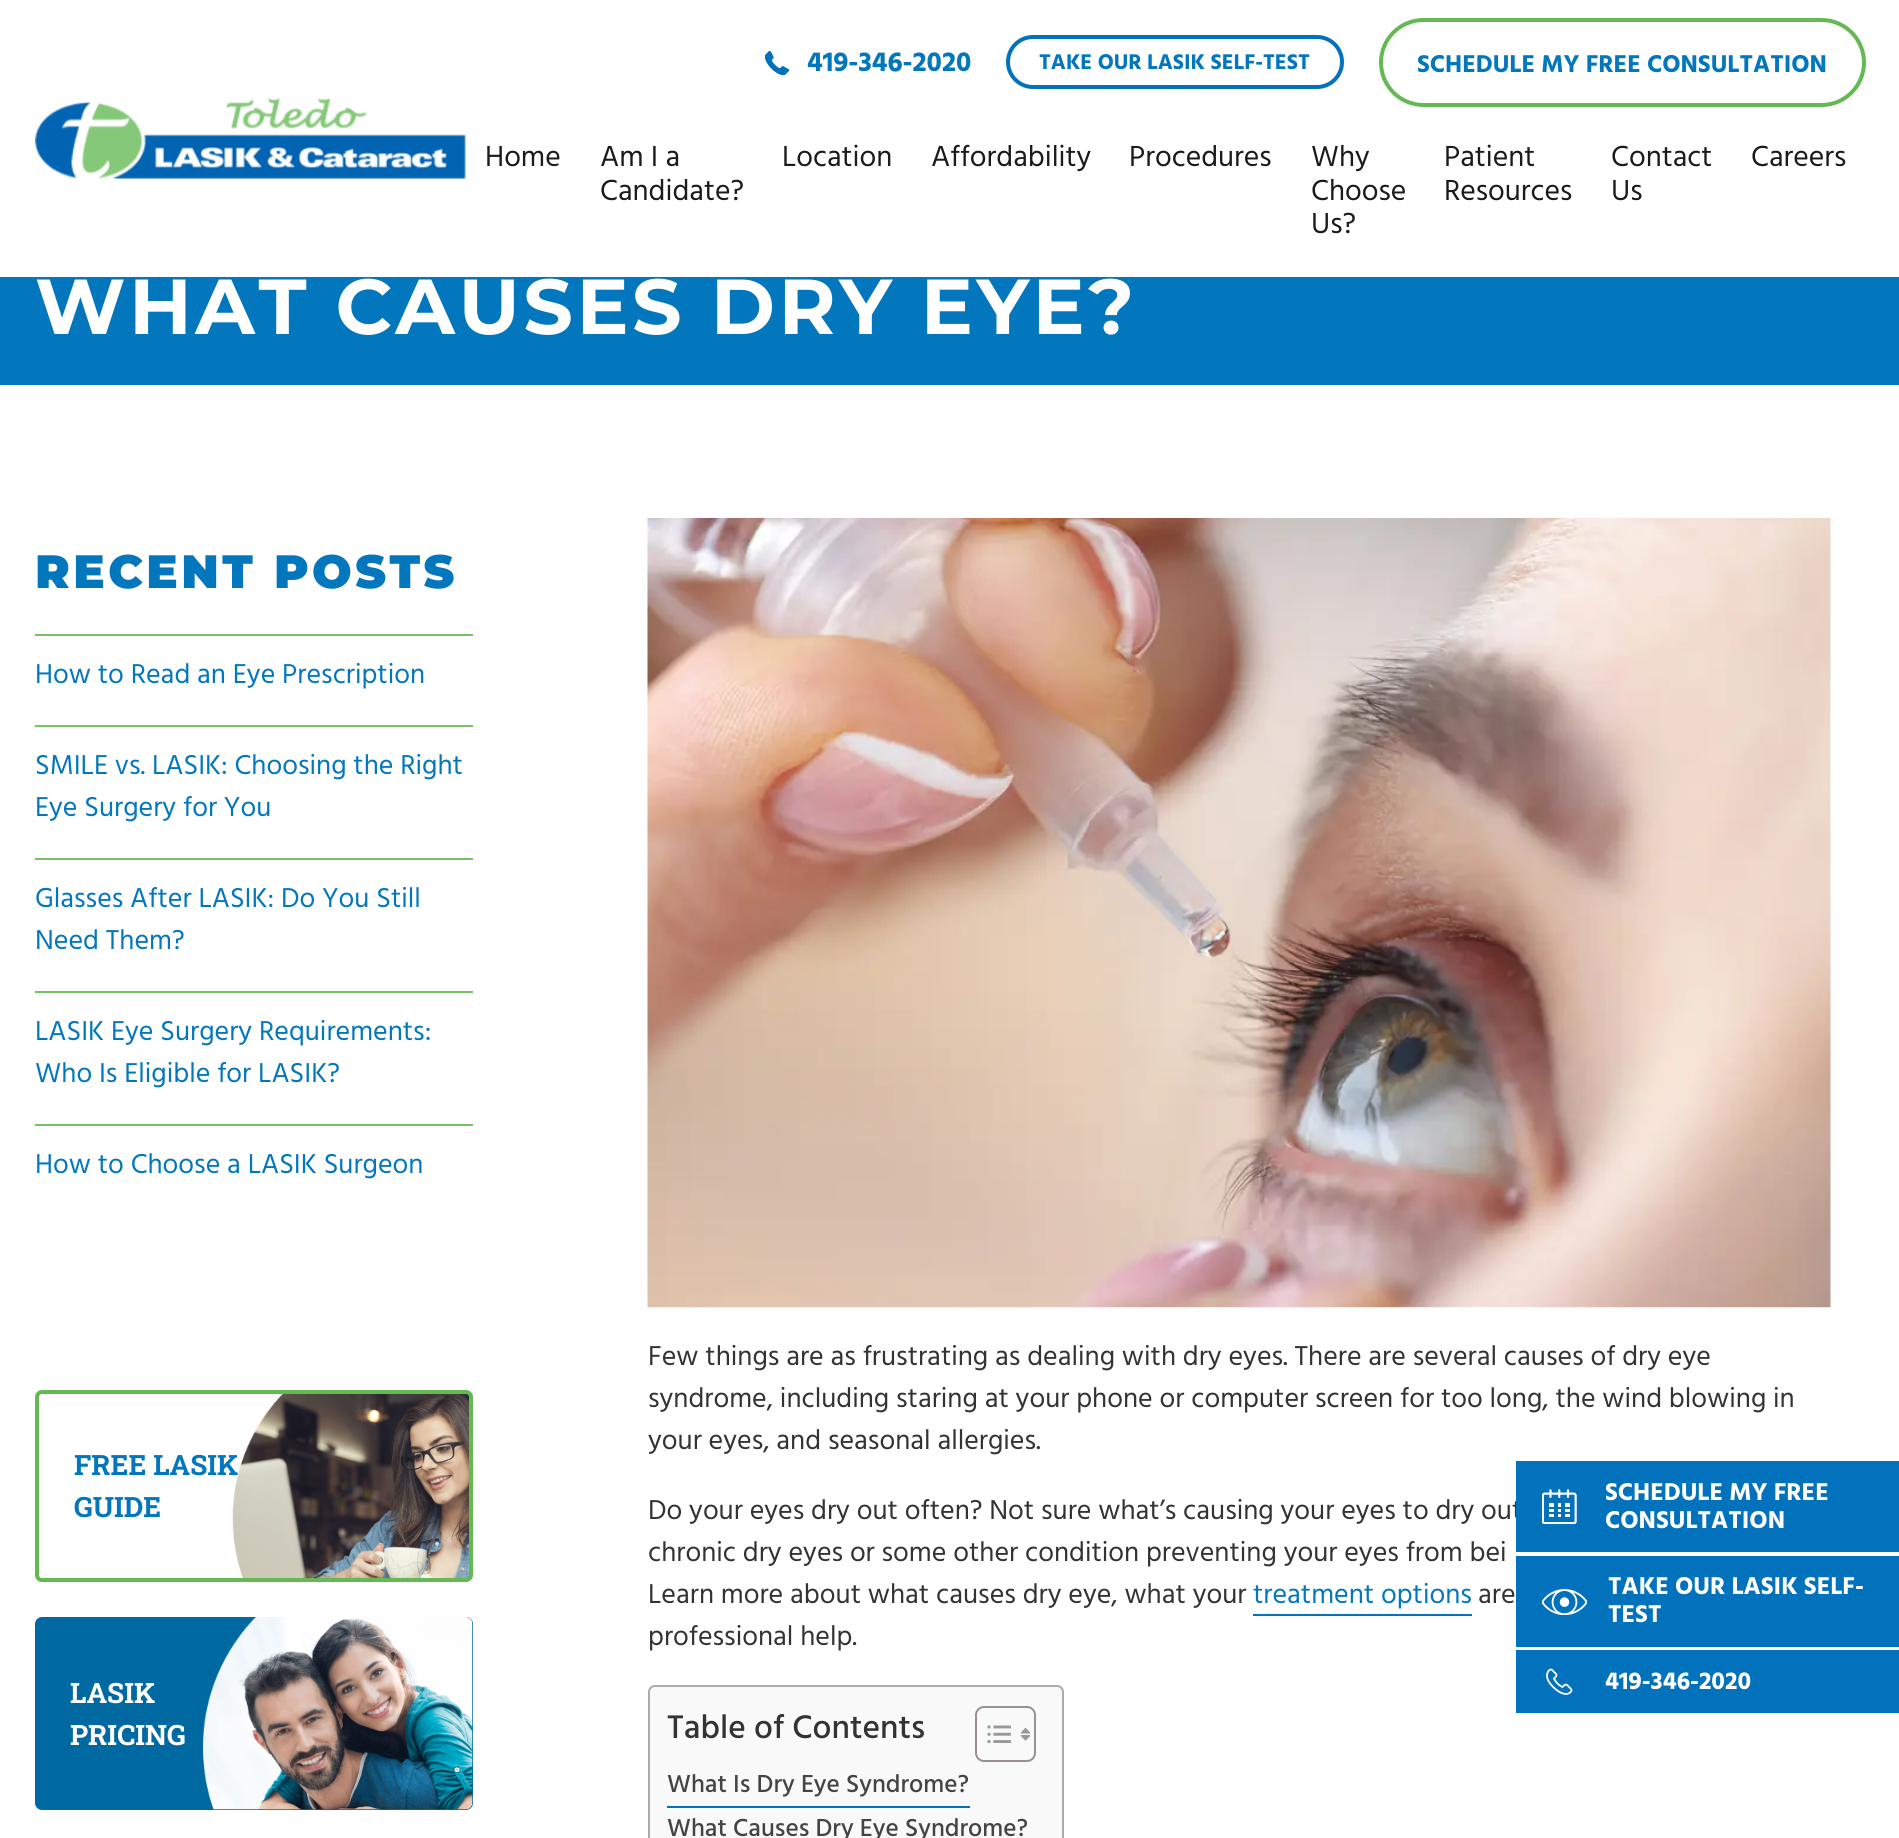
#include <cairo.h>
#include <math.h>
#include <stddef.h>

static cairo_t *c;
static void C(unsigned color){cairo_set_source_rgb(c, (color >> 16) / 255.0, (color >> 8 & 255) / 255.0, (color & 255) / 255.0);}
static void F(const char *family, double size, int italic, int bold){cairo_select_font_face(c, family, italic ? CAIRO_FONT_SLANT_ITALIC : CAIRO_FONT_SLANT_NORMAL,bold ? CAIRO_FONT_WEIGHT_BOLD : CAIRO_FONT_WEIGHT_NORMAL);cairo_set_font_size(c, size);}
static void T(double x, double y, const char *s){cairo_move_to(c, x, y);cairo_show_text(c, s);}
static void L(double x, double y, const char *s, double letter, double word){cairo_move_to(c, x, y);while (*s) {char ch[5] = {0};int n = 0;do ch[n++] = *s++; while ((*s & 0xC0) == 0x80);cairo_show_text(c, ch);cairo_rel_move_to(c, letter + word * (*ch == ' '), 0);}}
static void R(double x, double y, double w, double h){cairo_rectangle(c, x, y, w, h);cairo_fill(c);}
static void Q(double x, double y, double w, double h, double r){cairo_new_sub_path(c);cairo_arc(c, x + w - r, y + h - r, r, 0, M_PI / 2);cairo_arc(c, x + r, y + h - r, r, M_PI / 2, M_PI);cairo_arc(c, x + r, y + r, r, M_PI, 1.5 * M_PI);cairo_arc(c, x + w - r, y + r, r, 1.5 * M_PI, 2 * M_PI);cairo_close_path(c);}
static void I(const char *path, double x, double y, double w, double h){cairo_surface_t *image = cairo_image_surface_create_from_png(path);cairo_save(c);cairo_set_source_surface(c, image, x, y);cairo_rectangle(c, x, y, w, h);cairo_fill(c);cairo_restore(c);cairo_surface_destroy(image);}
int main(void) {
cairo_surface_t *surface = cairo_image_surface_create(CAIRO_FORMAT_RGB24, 1899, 1838);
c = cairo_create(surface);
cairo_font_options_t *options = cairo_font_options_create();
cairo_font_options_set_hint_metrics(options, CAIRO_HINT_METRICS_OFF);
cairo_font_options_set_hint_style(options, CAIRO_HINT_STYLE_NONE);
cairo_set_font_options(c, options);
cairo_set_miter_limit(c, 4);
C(0xffffff);
cairo_paint(c);
I("1.png",35,98,431,81);
I("2.png",765,51,24,24);
F("Hind Madurai",28,0,1);
C(0x0377bd);
T(807,71,"419-346-2020");
Q(1008,37,334,50,25);
C(0x0372bc);
cairo_set_line_width(c,4);
cairo_stroke(c);
F("Hind Madurai",21.8,0,1);
C(0x0377bd);
T(1039,69,"TAKE OUR LASIK SELF-TEST");
Q(1381,20,483,85,42.5);
C(0x64b953);
cairo_stroke(c);
F("Hind Madurai",24.9,0,1);
C(0x0377bd);
T(1417,72,"SCHEDULE MY FREE CONSULTATION");
F("Hind Madurai",29.75,0,0);
C(0x1b1b1b);
T(485,166,"Home");
T(600,166,"Am I a");
T(600,200,"Candidate?");
T(782,166,"Location");
T(931,166,"Affordability");
T(1129,166,"Procedures");
T(1311,166,"Why");
T(1311,200,"Choose");
T(1311,233,"Us?");
T(1444,166,"Patient");
T(1444,200,"Resources");
T(1611,166,"Contact");
T(1611,200,"Us");
T(1751,166,"Careers");
C(0x0277bd);
R(0,277,1899,108);
F("Montserrat",77.8,0,1);
C(0xffffff);
L(35,334,"WHAT CAUSES DRY EYE?",3.5,0);
F("Montserrat Black",46.75,0,0);
C(0x0377bd);
L(35,588,"RECENT POSTS",3.5,0);
C(0x75c365);
R(35,634,438,2);
F("Hind Madurai",28,0,0);
C(0x0377bd);
T(35,683,"How to Read an Eye Prescription");
C(0x75c365);
R(35,725,438,2);
C(0x0377bd);
T(35,774,"SMILE vs. LASIK: Choosing the Right");
T(35,816,"Eye Surgery for You");
C(0x75c365);
R(35,858,438,2);
C(0x0377bd);
T(35,907,"Glasses After LASIK: Do You Still");
T(35,949,"Need Them?");
C(0x75c365);
R(35,991,438,2);
C(0x0377bd);
T(35,1040,"LASIK Eye Surgery Requirements:");
T(35,1082,"Who Is Eligible for LASIK?");
C(0x75c365);
R(35,1124,438,2);
C(0x0377bd);
T(35,1173,"How to Choose a LASIK Surgeon");
I("3.png",232,1393,241,186);
Q(37,1392,434,188,5);
C(0x64b953);
cairo_stroke(c);
F("Roboto Slab",28,0,1);
C(0x0377bd);
T(74,1475,"FREE LASIK");
T(74,1517,"GUIDE");
C(0x0069a1);
Q(35,1617,438,193,7);
cairo_fill(c);
I("4.png",203,1617,270,193);
C(0xffffff);
T(70,1703,"LASIK");
T(70,1745,"PRICING");
I("5.png",647,518,1184,790);
F("Hind Madurai",28,0,0);
C(0x333333);
T(648,1365,"Few things are as frustrating as dealing with dry eyes. There are several causes of dry eye");
T(648,1407,"syndrome, including staring at your phone or computer screen for too long, the wind blowing in");
T(648,1449,"your eyes, and seasonal allergies.");
T(648,1519,"Do your eyes dry out often? Not sure what’s causing your eyes to dry out");
T(648,1561,"chronic dry eyes or some other condition preventing your eyes from bei");
T(648,1603,"Learn more about what causes dry eye, what your");
C(0x0377bd);
T(1253,1603,"treatment options");
C(0x0372bc);
R(1253,1614,219,2);
C(0x333333);
T(1478,1603,"are");
T(648,1645,"professional help.");
C(0xf9f9f9);
Q(649,1686,414,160,6);
cairo_fill_preserve(c);
C(0xaaaaaa);
cairo_set_line_width(c,2);
cairo_stroke(c);
F("Hind Madurai Medium",33.5,0,0);
C(0x333333);
T(667,1738,"Table of Contents");
Q(976,1707,59,54,8);
C(0x999191);
cairo_stroke(c);
I("6.png",987,1725,24,18);
I("7.png",1020,1727,11,14);
C(0x0372bc);
R(667,1806,303,2);
F("Hind Madurai Medium",25.25,0,0);
C(0x444444);
T(667,1792,"What Is Dry Eye Syndrome?");
T(667,1836,"What Causes Dry Eye Syndrome?");
C(0x0372bc);
R(1516,1461,383,91);
I("8.png",1542,1489,35,35);
F("Hind Madurai",24.9,0,1);
C(0xffffff);
T(1605,1500,"SCHEDULE MY FREE");
T(1605,1528,"CONSULTATION");
C(0x0372bc);
R(1516,1556,383,91);
I("9.png",1542,1589,45,26);
C(0xffffff);
T(1608,1594,"TAKE OUR LASIK SELF-");
T(1608,1622,"TEST");
C(0x0372bc);
R(1516,1650,383,63);
I("10.png",1546,1668,27,27);
C(0xffffff);
T(1605,1689,"419-346-2020");
cairo_surface_write_to_png(surface, "o.png");
cairo_font_options_destroy(options);
cairo_destroy(c);
cairo_surface_destroy(surface);
return 0;
}
